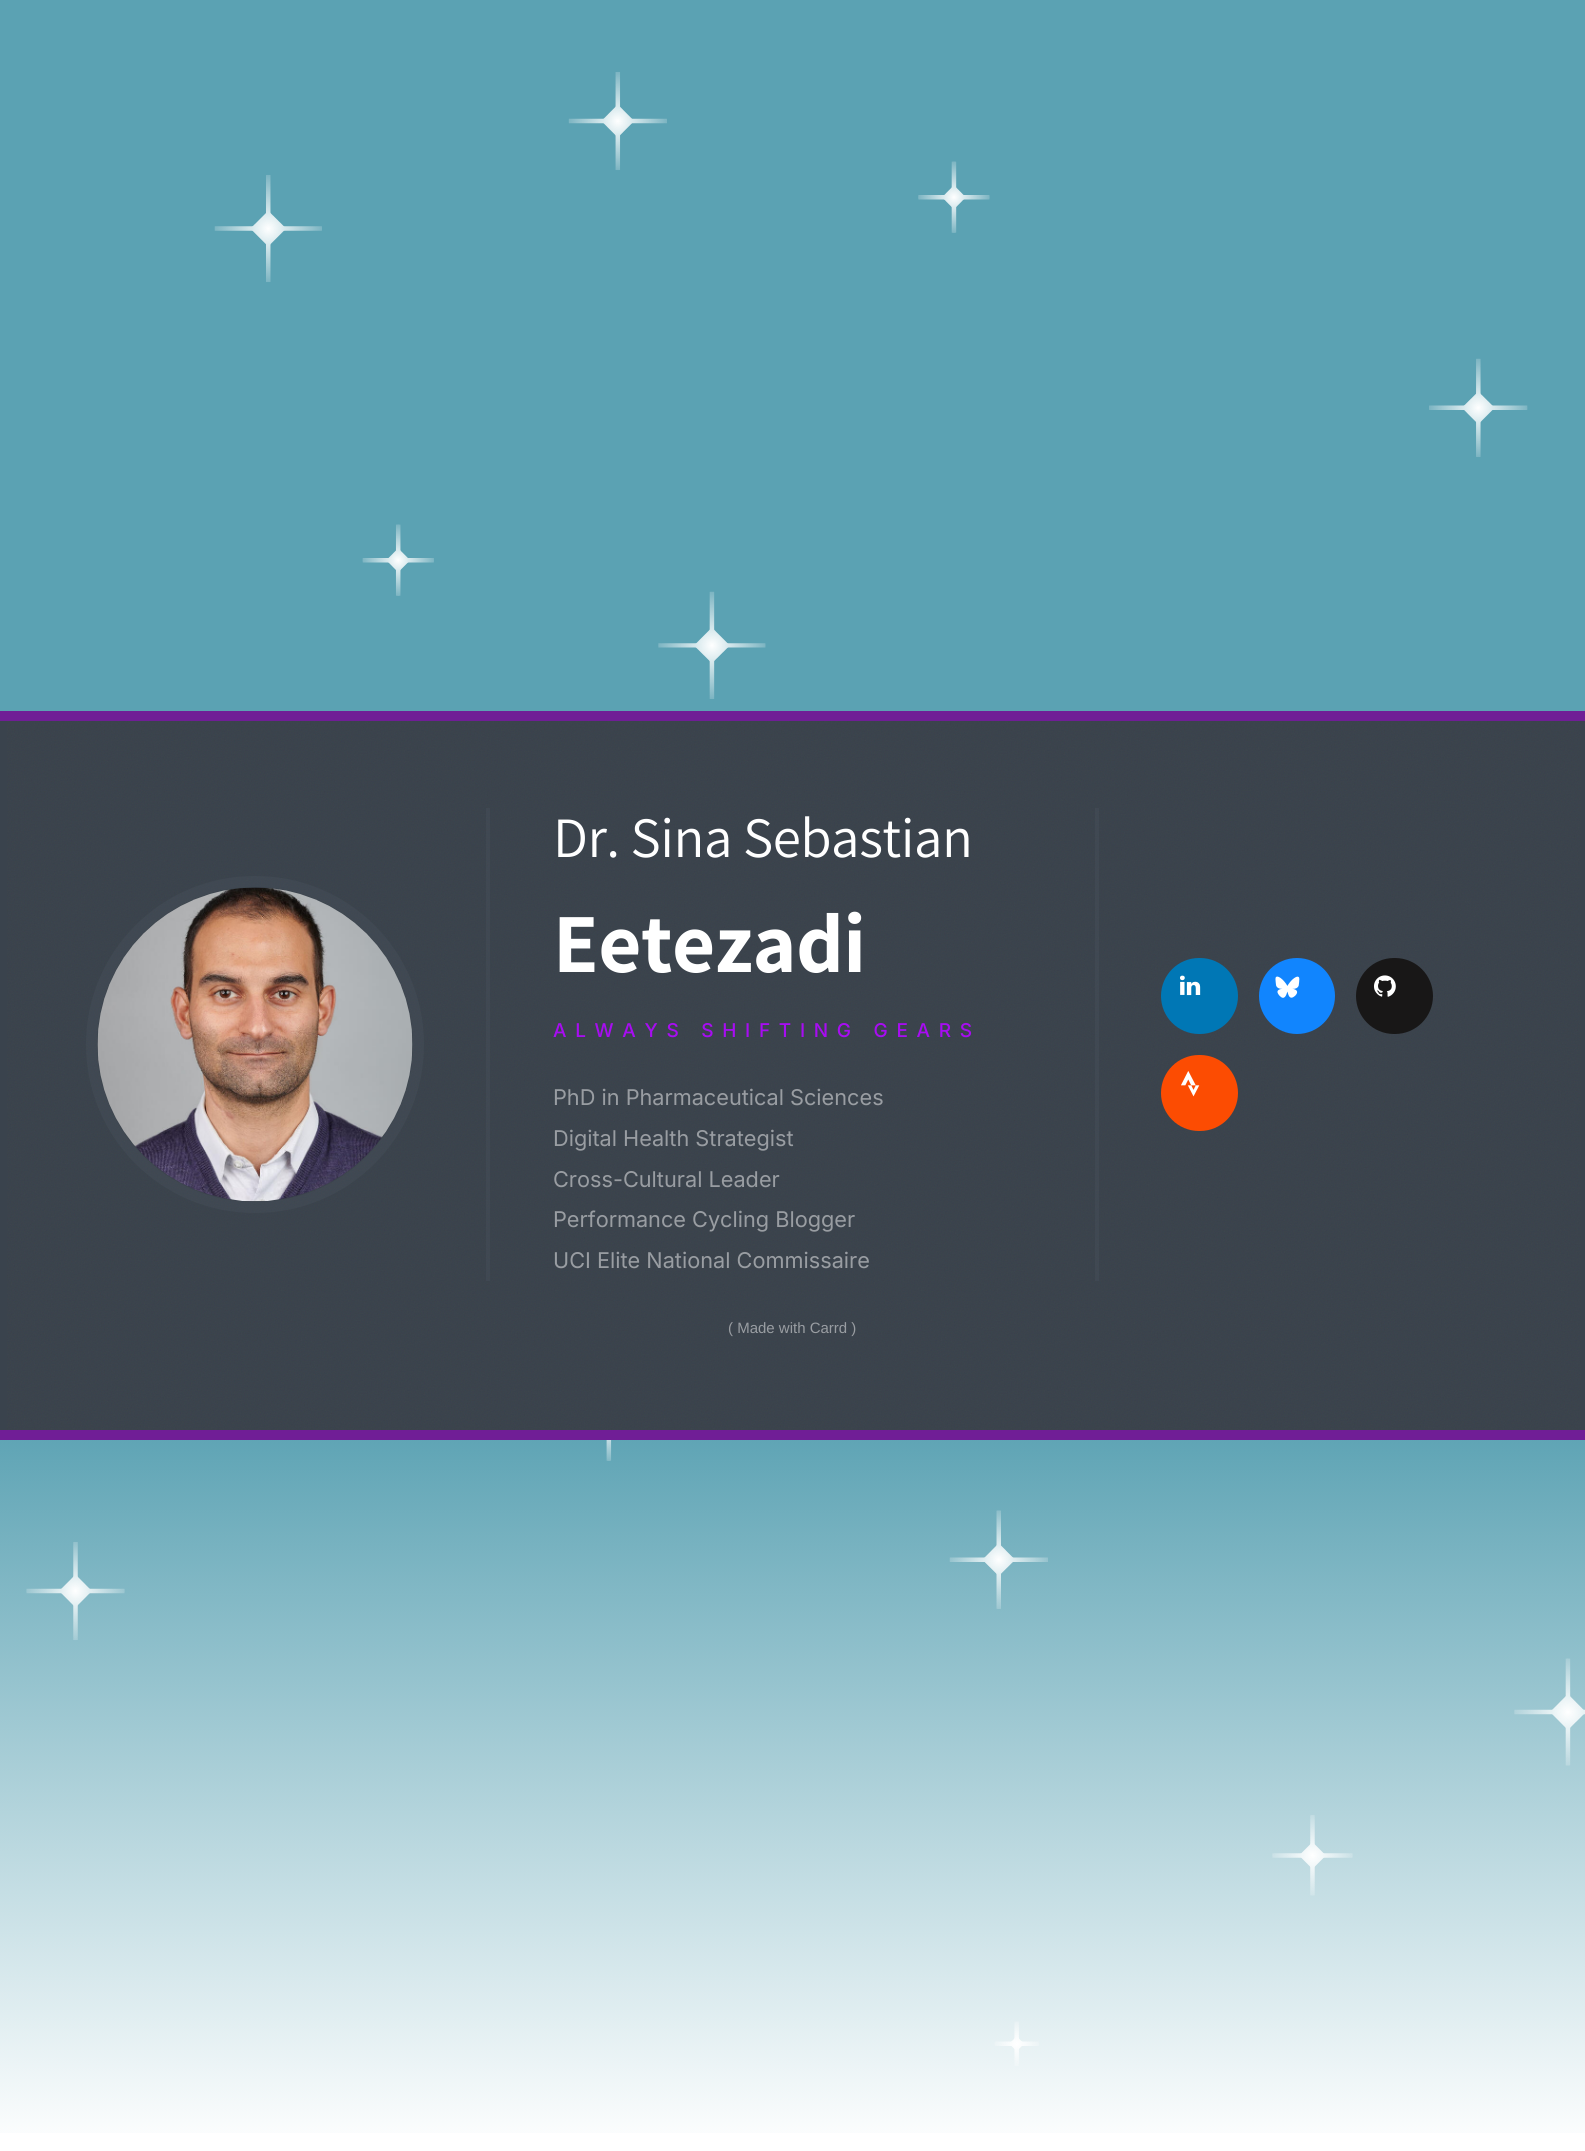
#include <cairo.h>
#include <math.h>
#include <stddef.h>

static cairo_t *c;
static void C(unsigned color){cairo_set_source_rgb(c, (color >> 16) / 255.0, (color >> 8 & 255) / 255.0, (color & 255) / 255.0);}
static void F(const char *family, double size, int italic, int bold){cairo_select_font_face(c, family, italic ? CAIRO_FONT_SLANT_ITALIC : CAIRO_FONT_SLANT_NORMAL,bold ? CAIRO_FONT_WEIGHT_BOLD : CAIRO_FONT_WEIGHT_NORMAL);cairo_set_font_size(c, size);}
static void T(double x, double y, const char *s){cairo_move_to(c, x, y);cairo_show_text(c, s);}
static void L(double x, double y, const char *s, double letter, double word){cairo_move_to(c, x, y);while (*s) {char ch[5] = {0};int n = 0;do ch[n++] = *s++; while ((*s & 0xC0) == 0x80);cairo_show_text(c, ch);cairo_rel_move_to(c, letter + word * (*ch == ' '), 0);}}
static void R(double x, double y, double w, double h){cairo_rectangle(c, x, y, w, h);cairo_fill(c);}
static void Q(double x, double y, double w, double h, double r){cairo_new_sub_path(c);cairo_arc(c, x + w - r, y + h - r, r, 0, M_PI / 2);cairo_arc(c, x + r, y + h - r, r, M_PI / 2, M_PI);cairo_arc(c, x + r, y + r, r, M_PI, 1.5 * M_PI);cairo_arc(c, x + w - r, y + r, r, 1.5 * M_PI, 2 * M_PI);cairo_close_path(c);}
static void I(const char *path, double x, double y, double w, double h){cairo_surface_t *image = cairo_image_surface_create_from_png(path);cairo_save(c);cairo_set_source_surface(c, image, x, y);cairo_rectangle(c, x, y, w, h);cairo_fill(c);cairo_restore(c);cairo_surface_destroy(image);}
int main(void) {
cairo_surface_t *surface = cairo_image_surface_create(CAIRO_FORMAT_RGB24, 1585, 2151);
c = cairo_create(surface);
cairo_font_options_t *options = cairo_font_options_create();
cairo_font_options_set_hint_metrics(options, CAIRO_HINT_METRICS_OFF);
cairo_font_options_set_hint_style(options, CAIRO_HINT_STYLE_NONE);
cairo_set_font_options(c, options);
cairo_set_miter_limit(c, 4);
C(0xffffff);
cairo_paint(c);
I("1.png",0,0,1585,2133);
C(0x3a434d);
R(0,721,1585,709);
I("2.png",7,721,1574,709);
C(0x701e96);
R(0,711,1585,10);
R(0,1430,1585,10);
Q(91.5,881.5,327,326,163);
cairo_set_source_rgba(c,0.349,0.38,0.412,0.19);
cairo_set_line_width(c,11);
cairo_stroke(c);
I("3.png",97,887,316,315);
R(486,808,4,473);
F("Assistant",57,0,0);
C(0xffffff);
L(553,857,"Dr. Sina Sebastian",-.5,0);
F("Assistant",84,0,1);
L(553,972,"Eetezadi",-.5,0);
F("Inter Medium",19,0,0);
C(0xa80cf2);
L(553,1037,"ALWAYS SHIFTING GEARS",8.7,0);
F("Inter",21.7,0,0);
C(0x999da2);
T(553,1105,"PhD in Pharmaceutical Sciences");
T(553,1146,"Digital Health Strategist");
T(553,1187,"Cross-Cultural Leader");
T(553,1227,"Performance Cycling Blogger");
T(553,1268,"UCI Elite National Commissaire");
cairo_set_source_rgba(c,0.349,0.38,0.412,0.19);
R(1095,808,4,473);
C(0x0077b5);
Q(1161,958,77,76,38);
cairo_fill(c);
I("4.png",1180,975,21,21);
C(0x1185fe);
cairo_arc(c,1297,996,38,0,2 * M_PI);
cairo_fill(c);
I("5.png",1275,976,25,22);
C(0x181717);
Q(1356,958,77,76,38);
cairo_fill(c);
I("6.png",1374,975,22,22);
C(0xfc4c02);
Q(1161,1055,77,76,38);
cairo_fill(c);
I("7.png",1181,1071,19,26);
F("Liberation Sans",15,0,0);
C(0x999da2);
T(728,1333,"( Made with Carrd )");
cairo_surface_write_to_png(surface, "o.png");
cairo_font_options_destroy(options);
cairo_destroy(c);
cairo_surface_destroy(surface);
return 0;
}
